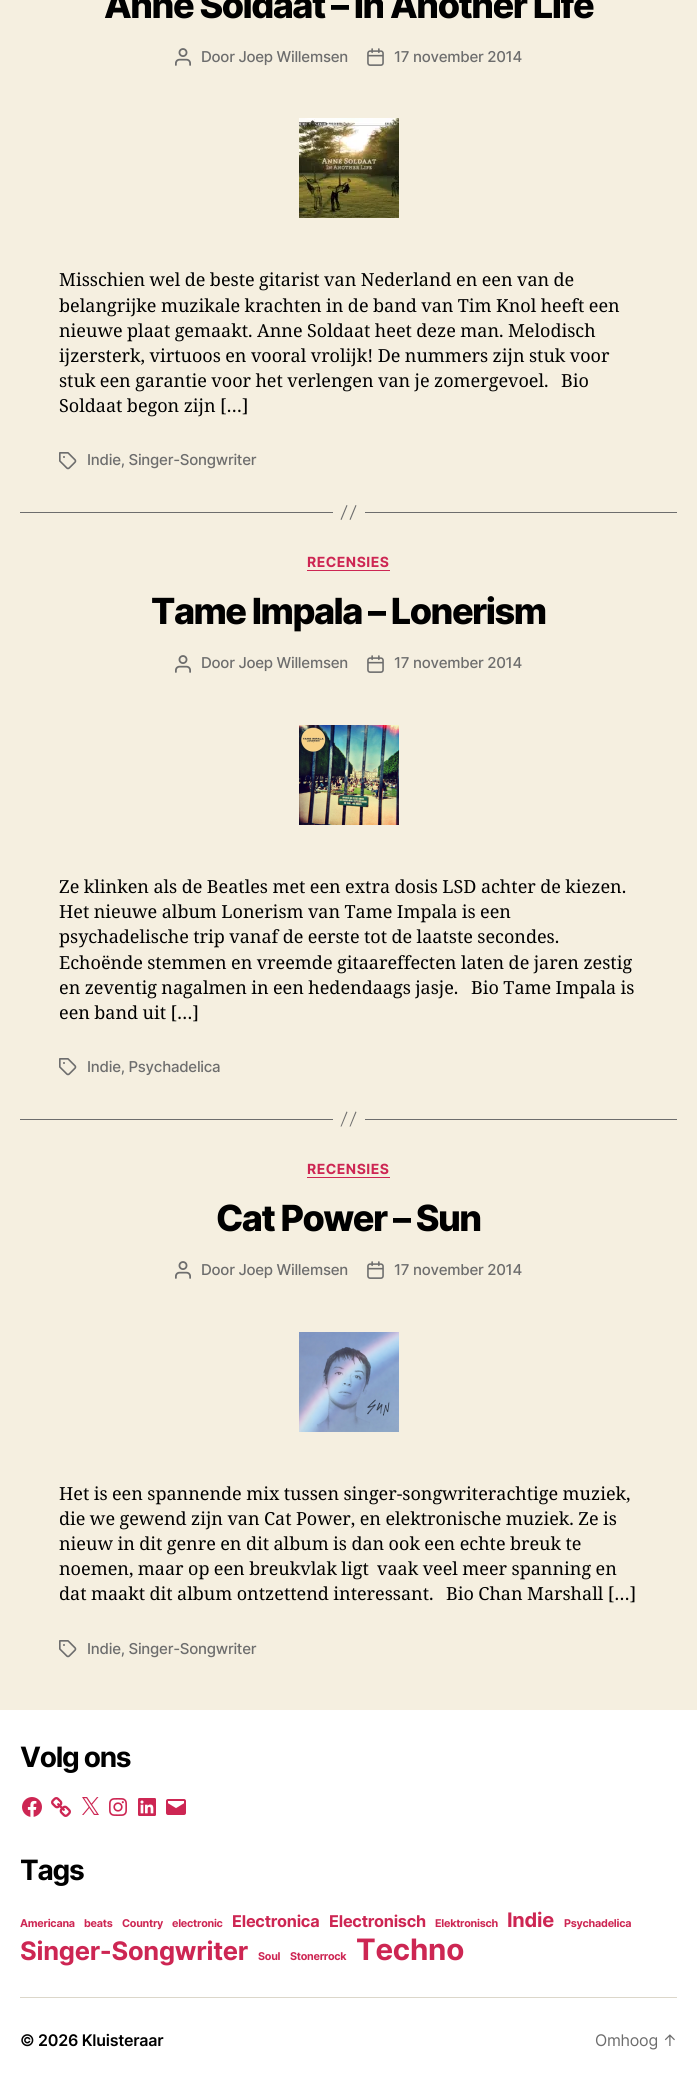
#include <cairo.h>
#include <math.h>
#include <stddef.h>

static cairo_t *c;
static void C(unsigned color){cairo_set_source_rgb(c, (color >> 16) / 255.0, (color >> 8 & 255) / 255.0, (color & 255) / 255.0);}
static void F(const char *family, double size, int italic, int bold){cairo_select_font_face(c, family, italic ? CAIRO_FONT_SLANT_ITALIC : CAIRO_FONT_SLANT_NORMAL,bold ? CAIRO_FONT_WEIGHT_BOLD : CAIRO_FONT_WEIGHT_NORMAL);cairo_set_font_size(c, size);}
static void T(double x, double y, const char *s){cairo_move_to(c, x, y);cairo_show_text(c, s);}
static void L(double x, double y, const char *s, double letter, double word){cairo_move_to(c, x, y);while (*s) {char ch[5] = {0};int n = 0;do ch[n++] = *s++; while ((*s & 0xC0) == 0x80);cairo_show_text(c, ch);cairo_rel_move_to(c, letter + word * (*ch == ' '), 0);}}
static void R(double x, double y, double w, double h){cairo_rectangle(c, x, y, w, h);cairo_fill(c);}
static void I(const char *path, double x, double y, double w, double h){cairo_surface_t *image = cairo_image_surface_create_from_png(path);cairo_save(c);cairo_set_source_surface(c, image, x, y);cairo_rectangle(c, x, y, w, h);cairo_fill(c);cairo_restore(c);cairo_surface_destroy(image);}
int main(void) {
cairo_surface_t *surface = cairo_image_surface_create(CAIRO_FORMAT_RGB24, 697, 2082);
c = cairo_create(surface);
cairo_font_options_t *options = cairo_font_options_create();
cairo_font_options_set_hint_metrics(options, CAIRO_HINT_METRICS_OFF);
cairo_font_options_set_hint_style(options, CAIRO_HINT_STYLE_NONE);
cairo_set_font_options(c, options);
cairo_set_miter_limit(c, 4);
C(0xf5efe0);
cairo_paint(c);
F("Inter ExtraBold",36,0,0);
C(0x000000);
L(104,18,"Anne Soldaat – In Another Life",-1.5,0);
I("1.png",175,48,16,18);
F("Inter Medium",15,0,0);
C(0x6d6d6d);
L(201,62,"Door Joep Willemsen",-.25,0);
I("2.png",367,48,17,18);
L(394,62,"17 november 2014",-.25,0);
I("3.png",299,118,100,100);
F("Noto Serif",18,0,0);
C(0x000000);
L(59,286,"Misschien wel de beste gitarist van Nederland en een van de",0,-.25);
L(59,312,"belangrijke muzikale krachten in de band van Tim Knol heeft een",0,-.25);
L(59,337,"nieuwe plaat gemaakt. Anne Soldaat heet deze man. Melodisch",0,-.25);
L(59,362,"ijzersterk, virtuoos en vooral vrolijk! De nummers zijn stuk voor",0,-.25);
L(59,387,"stuk een garantie voor het verlengen van je zomergevoel.",0,-.25);
T(561,387,"Bio");
L(59,412,"Soldaat begon zijn […]",0,-.25);
I("4.png",59,452,18,18);
F("Inter Medium",15,0,0);
C(0x6d6d6d);
L(87,465,"Indie, Singer-Songwriter",-.25,0);
R(365,512,312,1);
R(20,512,313,1);
cairo_new_path(c);
cairo_move_to(c,346.5,505);
cairo_line_to(c,347.5,505.5);
cairo_line_to(c,341.5,520);
cairo_line_to(c,340.5,519.5);
cairo_close_path(c);
cairo_move_to(c,355.5,505);
cairo_line_to(c,356.5,505.5);
cairo_line_to(c,350.5,520);
cairo_line_to(c,349.5,519.5);
cairo_close_path(c);
cairo_fill(c);
C(0xcd2653);
R(307,570,83,1);
F("Inter",14,0,1);
L(307,567,"RECENSIES",.5,0);
F("Inter ExtraBold",36,0,0);
C(0x000000);
L(151,624,"Tame Impala – Lonerism",-1.5,0);
I("1.png",175,655,16,18);
F("Inter Medium",15,0,0);
C(0x6d6d6d);
L(201,668,"Door Joep Willemsen",-.25,0);
I("2.png",367,655,17,18);
L(394,668,"17 november 2014",-.25,0);
I("5.png",299,725,100,100);
F("Noto Serif",18,0,0);
C(0x000000);
L(59,893,"Ze klinken als de Beatles met een extra dosis LSD achter de kiezen.",0,-.25);
L(59,918,"Het nieuwe album Lonerism van Tame Impala is een",0,-.25);
L(59,943,"psychadelische trip vanaf de eerste tot de laatste secondes.",0,-.25);
L(59,969,"Echoënde stemmen en vreemde gitaareffecten laten de jaren zestig",0,-.25);
L(59,994,"en zeventig nagalmen in een hedendaags jasje.",0,-.25);
L(471,994,"Bio Tame Impala is",0,-.25);
L(59,1019,"een band uit […]",0,-.25);
I("4.png",59,1058,18,18);
F("Inter Medium",15,0,0);
C(0x6d6d6d);
L(87,1072,"Indie, Psychadelica",-.25,0);
R(365,1119,312,1);
R(20,1119,313,1);
cairo_new_path(c);
cairo_move_to(c,346.5,1111.5);
cairo_line_to(c,347.5,1112);
cairo_line_to(c,341.5,1126.5);
cairo_line_to(c,340.5,1126.5);
cairo_close_path(c);
cairo_move_to(c,355.5,1111.5);
cairo_line_to(c,356.5,1112);
cairo_line_to(c,350.5,1126.5);
cairo_line_to(c,349.5,1126.5);
cairo_close_path(c);
cairo_fill(c);
C(0xcd2653);
R(307,1177,83,1);
F("Inter",14,0,1);
L(307,1174,"RECENSIES",.5,0);
F("Inter ExtraBold",36,0,0);
C(0x000000);
L(216,1231,"Cat Power – Sun",-1.5,0);
I("1.png",175,1261,16,18);
F("Inter Medium",15,0,0);
C(0x6d6d6d);
L(201,1275,"Door Joep Willemsen",-.25,0);
I("2.png",367,1261,17,18);
L(394,1275,"17 november 2014",-.25,0);
I("6.png",299,1332,100,100);
F("Noto Serif",18,0,0);
C(0x000000);
L(59,1500,"Het is een spannende mix tussen singer-songwriterachtige muziek,",0,-.25);
L(59,1525,"die we gewend zijn van Cat Power, en elektronische muziek. Ze is",0,-.25);
L(59,1550,"nieuw in dit genre en dit album is dan ook een echte breuk te",0,-.25);
L(59,1575,"noemen, maar op een breukvlak ligt",0,-.25);
L(377,1575,"vaak veel meer spanning en",0,-.25);
L(59,1600,"dat maakt dit album ontzettend interessant.",0,-.25);
L(446,1600,"Bio Chan Marshall […]",0,-.25);
I("4.png",59,1640,18,18);
F("Inter Medium",15,0,0);
C(0x6d6d6d);
L(87,1654,"Indie, Singer-Songwriter",-.25,0);
C(0xffffff);
R(0,1710,697,372);
C(0xdcd7ca);
R(20,1997,657,1);
F("Inter",28,0,1);
C(0x000000);
L(20,1767,"Volg ons",-1.25,0);
I("7.png",22,1797,20,20);
I("8.png",51,1797,20,20);
I("9.png",82,1797,17,18);
I("10.png",109,1798,18,18);
I("11.png",138,1798,18,18);
I("12.png",166,1799,20,16);
L(20,1880,"Tags",-1.25,0);
F("Inter",10.75,0,1);
C(0xcd2653);
L(20,1927,"Americana",-.25,0);
L(84,1927,"beats",-.25,0);
L(122,1927,"Country",-.25,0);
L(172,1927,"electronic",-.25,0);
F("Inter",16.25,0,1);
L(232,1927,"Electronica",-.25,0);
L(329,1927,"Electronisch",-.25,0);
F("Inter",10.75,0,1);
L(435,1927,"Elektronisch",-.25,0);
F("Inter",20,0,1);
L(507,1927,"Indie",-.25,0);
F("Inter",10.75,0,1);
L(564,1927,"Psychadelica",-.25,0);
F("Inter",25.5,0,1);
L(20,1960,"Singer-Songwriter",-.25,0);
F("Inter",10.75,0,1);
L(258,1960,"Soul",-.25,0);
L(290,1960,"Stonerrock",-.25,0);
F("Inter",29.5,0,1);
L(356,1960,"Techno",-.25,0);
F("Inter SemiBold",16,0,0);
C(0x000000);
L(20,2046,"© 2026 Kluisteraar",-.25,0);
F("Inter",16,0,0);
C(0x6d6d6d);
L(595,2046,"Omhoog ↑",-.25,0);
cairo_surface_write_to_png(surface, "o.png");
cairo_font_options_destroy(options);
cairo_destroy(c);
cairo_surface_destroy(surface);
return 0;
}
